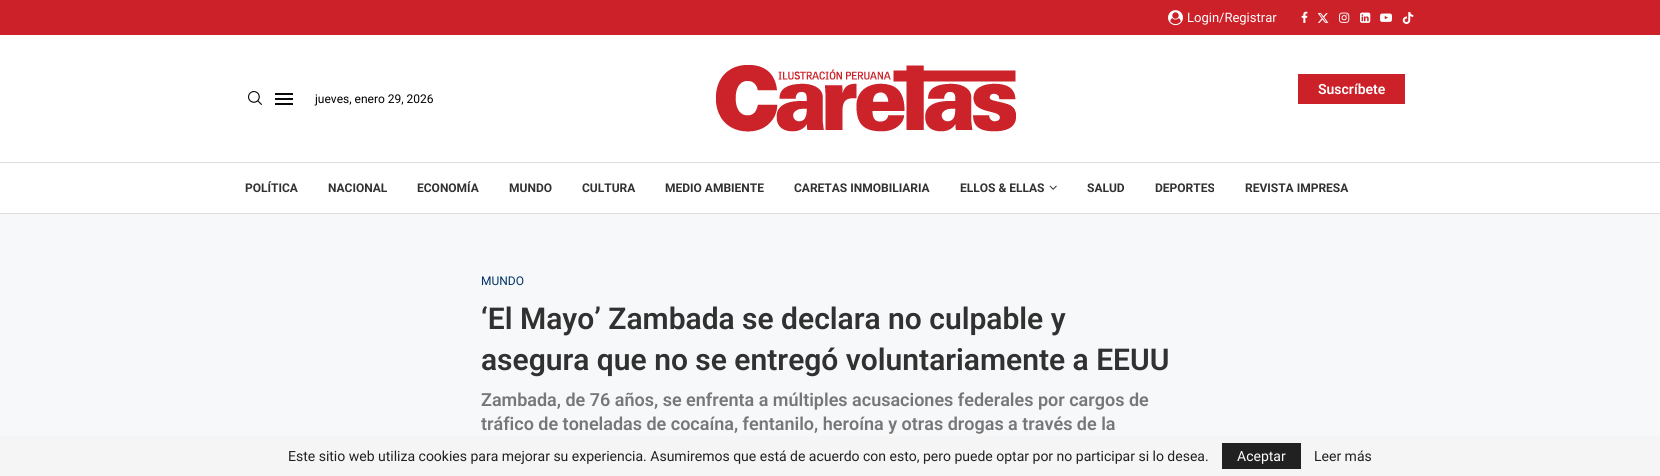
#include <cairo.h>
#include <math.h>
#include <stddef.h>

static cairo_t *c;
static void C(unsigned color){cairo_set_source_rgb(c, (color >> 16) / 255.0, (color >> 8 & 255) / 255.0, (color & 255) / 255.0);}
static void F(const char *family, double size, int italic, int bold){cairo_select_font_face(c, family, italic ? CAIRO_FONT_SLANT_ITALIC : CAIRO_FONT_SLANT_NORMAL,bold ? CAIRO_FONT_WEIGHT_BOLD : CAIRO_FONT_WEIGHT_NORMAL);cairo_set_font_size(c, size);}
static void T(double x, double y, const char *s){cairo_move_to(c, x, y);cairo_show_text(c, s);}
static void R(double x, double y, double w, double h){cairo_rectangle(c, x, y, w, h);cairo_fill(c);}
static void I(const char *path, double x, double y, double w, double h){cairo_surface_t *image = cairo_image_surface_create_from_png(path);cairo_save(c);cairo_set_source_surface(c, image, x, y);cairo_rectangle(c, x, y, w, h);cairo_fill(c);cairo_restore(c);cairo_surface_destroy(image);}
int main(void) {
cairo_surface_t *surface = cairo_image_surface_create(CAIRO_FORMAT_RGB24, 1660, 476);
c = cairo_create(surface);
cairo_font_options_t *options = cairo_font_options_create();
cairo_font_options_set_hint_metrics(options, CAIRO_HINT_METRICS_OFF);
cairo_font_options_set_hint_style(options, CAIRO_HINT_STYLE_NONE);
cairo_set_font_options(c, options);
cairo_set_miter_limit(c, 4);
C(0xf6f8fa);
cairo_paint(c);
C(0xcc2128);
R(0,0,1660,35);
I("1.png",1168,10,15,16);
F("Roboto",13,0,0);
C(0xffffff);
T(1187,22,"Login/Registrar");
I("2.png",1301,11,7,12);
I("3.png",1317,13,12,10);
I("4.png",1339,12,11,11);
I("5.png",1360,12,11,11);
I("6.png",1380,13,12,9);
I("7.png",1402,12,12,12);
R(0,35,1660,127);
I("8.png",716,65,300,67);
C(0xcc2128);
R(1298,74,107,30);
F("Roboto SemiBold",14,0,0);
C(0xffffff);
T(1318,94,"Suscríbete");
I("9.png",248,91,14,14);
C(0x0a0a0a);
R(275,93,18,2);
R(275,103,18,2);
R(275,98,18,2);
F("Roboto",12,0,0);
C(0x000000);
T(315,103,"jueves, enero 29, 2026");
C(0xffffff);
R(0,163,1660,50);
C(0xdedede);
R(0,162,1660,1);
R(0,213,1660,1);
F("Roboto",12,0,1);
C(0x313131);
T(245,192,"POLÍTICA");
T(328,192,"NACIONAL");
T(417,192,"ECONOMÍA");
T(509,192,"MUNDO");
T(582,192,"CULTURA");
T(665,192,"MEDIO AMBIENTE");
T(794,192,"CARETAS INMOBILIARIA");
T(960,192,"ELLOS & ELLAS");
I("10.png",1049,185,8,5);
T(1087,192,"SALUD");
T(1155,192,"DEPORTES");
T(1245,192,"REVISTA IMPRESA");
F("Roboto",12,0,0);
C(0x003366);
T(481,285,"MUNDO");
F("Roboto SemiBold",30,0,0);
C(0x313131);
T(481,329,"‘El Mayo’ Zambada se declara no culpable y");
T(481,370,"asegura que no se entregó voluntariamente a EEUU");
F("Roboto SemiBold",18,0,0);
C(0x777777);
T(481,406,"Zambada, de 76 años, se enfrenta a múltiples acusaciones federales por cargos de");
T(481,430,"tráfico de toneladas de cocaína, fentanilo, heroína y otras drogas a través de la");
C(0xf5f5f5);
R(0,436,1660,40);
F("Roboto",14,0,0);
C(0x212121);
T(288,461,"Este sitio web utiliza cookies para mejorar su experiencia. Asumiremos que está de acuerdo con esto, pero puede optar por no participar si lo desea.");
R(1222,443,79,26);
C(0xffffff);
T(1237,461,"Aceptar");
C(0x212121);
T(1314,461,"Leer más");
cairo_surface_write_to_png(surface, "o.png");
cairo_font_options_destroy(options);
cairo_destroy(c);
cairo_surface_destroy(surface);
return 0;
}
